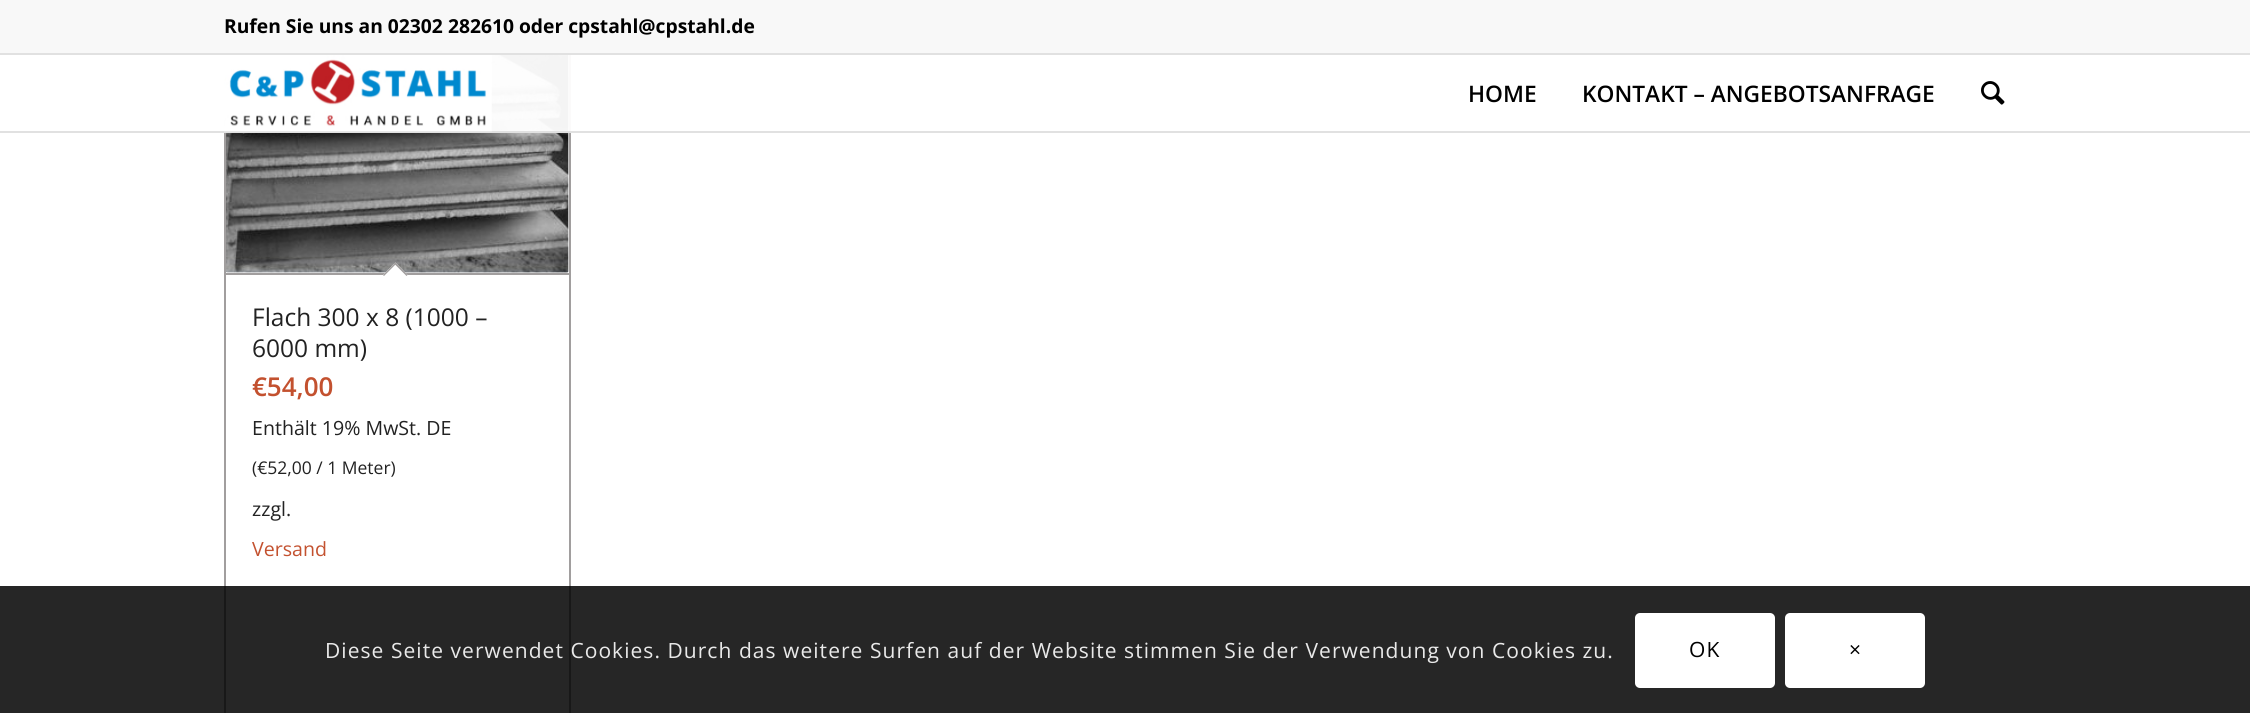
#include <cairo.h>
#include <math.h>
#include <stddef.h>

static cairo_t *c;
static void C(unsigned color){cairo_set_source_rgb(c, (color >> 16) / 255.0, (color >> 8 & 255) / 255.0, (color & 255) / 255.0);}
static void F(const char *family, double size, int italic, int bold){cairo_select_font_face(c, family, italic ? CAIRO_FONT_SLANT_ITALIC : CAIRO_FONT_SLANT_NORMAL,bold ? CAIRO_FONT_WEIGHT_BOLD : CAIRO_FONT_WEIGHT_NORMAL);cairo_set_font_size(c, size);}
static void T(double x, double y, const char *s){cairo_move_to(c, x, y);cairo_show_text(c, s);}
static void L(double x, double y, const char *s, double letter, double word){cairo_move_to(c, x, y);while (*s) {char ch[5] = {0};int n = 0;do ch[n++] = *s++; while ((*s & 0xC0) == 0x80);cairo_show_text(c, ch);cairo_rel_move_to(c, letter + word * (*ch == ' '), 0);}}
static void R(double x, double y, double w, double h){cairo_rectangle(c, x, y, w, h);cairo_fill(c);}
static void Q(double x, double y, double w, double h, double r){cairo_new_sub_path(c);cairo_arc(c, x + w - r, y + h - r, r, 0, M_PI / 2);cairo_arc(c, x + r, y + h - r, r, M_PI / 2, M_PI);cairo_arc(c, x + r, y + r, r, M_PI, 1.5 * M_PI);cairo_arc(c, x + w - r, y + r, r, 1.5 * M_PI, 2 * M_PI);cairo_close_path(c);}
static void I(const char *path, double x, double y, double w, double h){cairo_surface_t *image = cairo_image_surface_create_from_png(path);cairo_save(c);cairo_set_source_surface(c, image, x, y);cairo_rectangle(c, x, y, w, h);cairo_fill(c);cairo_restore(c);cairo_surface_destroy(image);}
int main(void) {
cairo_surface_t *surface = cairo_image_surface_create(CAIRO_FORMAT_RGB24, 2250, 713);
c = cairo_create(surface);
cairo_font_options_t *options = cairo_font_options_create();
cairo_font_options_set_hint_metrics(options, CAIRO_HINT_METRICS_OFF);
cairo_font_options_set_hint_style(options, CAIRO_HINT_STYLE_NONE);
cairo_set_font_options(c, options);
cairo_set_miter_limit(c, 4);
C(0xffffff);
cairo_paint(c);
cairo_rectangle(c,225,1,345,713);
C(0xa19e9e);
cairo_stroke(c);
C(0xf8f8f8);
R(0,0,2250,53);
C(0xe1e1e1);
R(0,53,2250,2);
F("Open Sans",19.25,0,1);
C(0x000000);
T(224,33,"Rufen Sie uns an 02302 282610 oder cpstahl@cpstahl.de");
I("3.png",226,55,343,218);
cairo_set_source_rgba(c,1,1,1,0.95);
R(224,55,347,76);
C(0xe1e1e1);
R(0,131,2250,2);
I("1.png",224,55,268,77);
F("Open Sans SemiBold",22.75,0,0);
C(0x000000);
T(1468,102,"HOME");
T(1582,102,"KONTAKT – ANGEBOTSANFRAGE");
I("2.png",1981,81,24,24);
C(0xa19e9e);
R(226,273,343,2);
C(0xffffff);
cairo_new_path(c);
cairo_move_to(c,395.5,262.5);
cairo_line_to(c,407.5,275);
cairo_line_to(c,395.5,287.5);
cairo_line_to(c,383,275);
cairo_close_path(c);
cairo_fill(c);
C(0xa19e9e);
cairo_new_path(c);
cairo_move_to(c,395.5,262.5);
cairo_line_to(c,407.5,275);
cairo_line_to(c,406.5,276);
cairo_line_to(c,394,263.5);
cairo_close_path(c);
cairo_fill(c);
cairo_new_path(c);
cairo_move_to(c,395.5,262.5);
cairo_line_to(c,396.5,263.5);
cairo_line_to(c,384,276);
cairo_line_to(c,383,275);
cairo_close_path(c);
cairo_fill(c);
F("Open Sans",24.5,0,0);
C(0x222222);
T(252,326,"Flach 300 x 8 (1000 –");
T(252,357,"6000 mm)");
F("Open Sans SemiBold",26,0,0);
C(0xc3512f);
T(252,396,"€54,00");
F("Open Sans",19.6,0,0);
C(0x222222);
T(252,435,"Enthält 19% MwSt. DE");
F("Open Sans",17.5,0,0);
T(252,474,"(€52,00 / 1 Meter)");
F("Open Sans",19.6,0,0);
T(252,516,"zzgl.");
C(0xc3512f);
T(252,556,"Versand");
cairo_set_source_rgba(c,0,0,0,0.85);
R(0,586,2250,127);
F("Open Sans",21,0,0);
C(0xe9e9e9);
L(325,658,"Diese Seite verwendet Cookies. Durch das weitere Surfen auf der Website stimmen Sie der Verwendung von Cookies zu.",1.05,0);
C(0xffffff);
Q(1635,613,140,75,5);
cairo_fill(c);
C(0x000000);
L(1689,657,"OK",1.05,0);
C(0xffffff);
Q(1785,613,140,75,5);
cairo_fill(c);
C(0x000000);
L(1849,657,"×",1.05,0);
cairo_surface_write_to_png(surface, "o.png");
cairo_font_options_destroy(options);
cairo_destroy(c);
cairo_surface_destroy(surface);
return 0;
}
